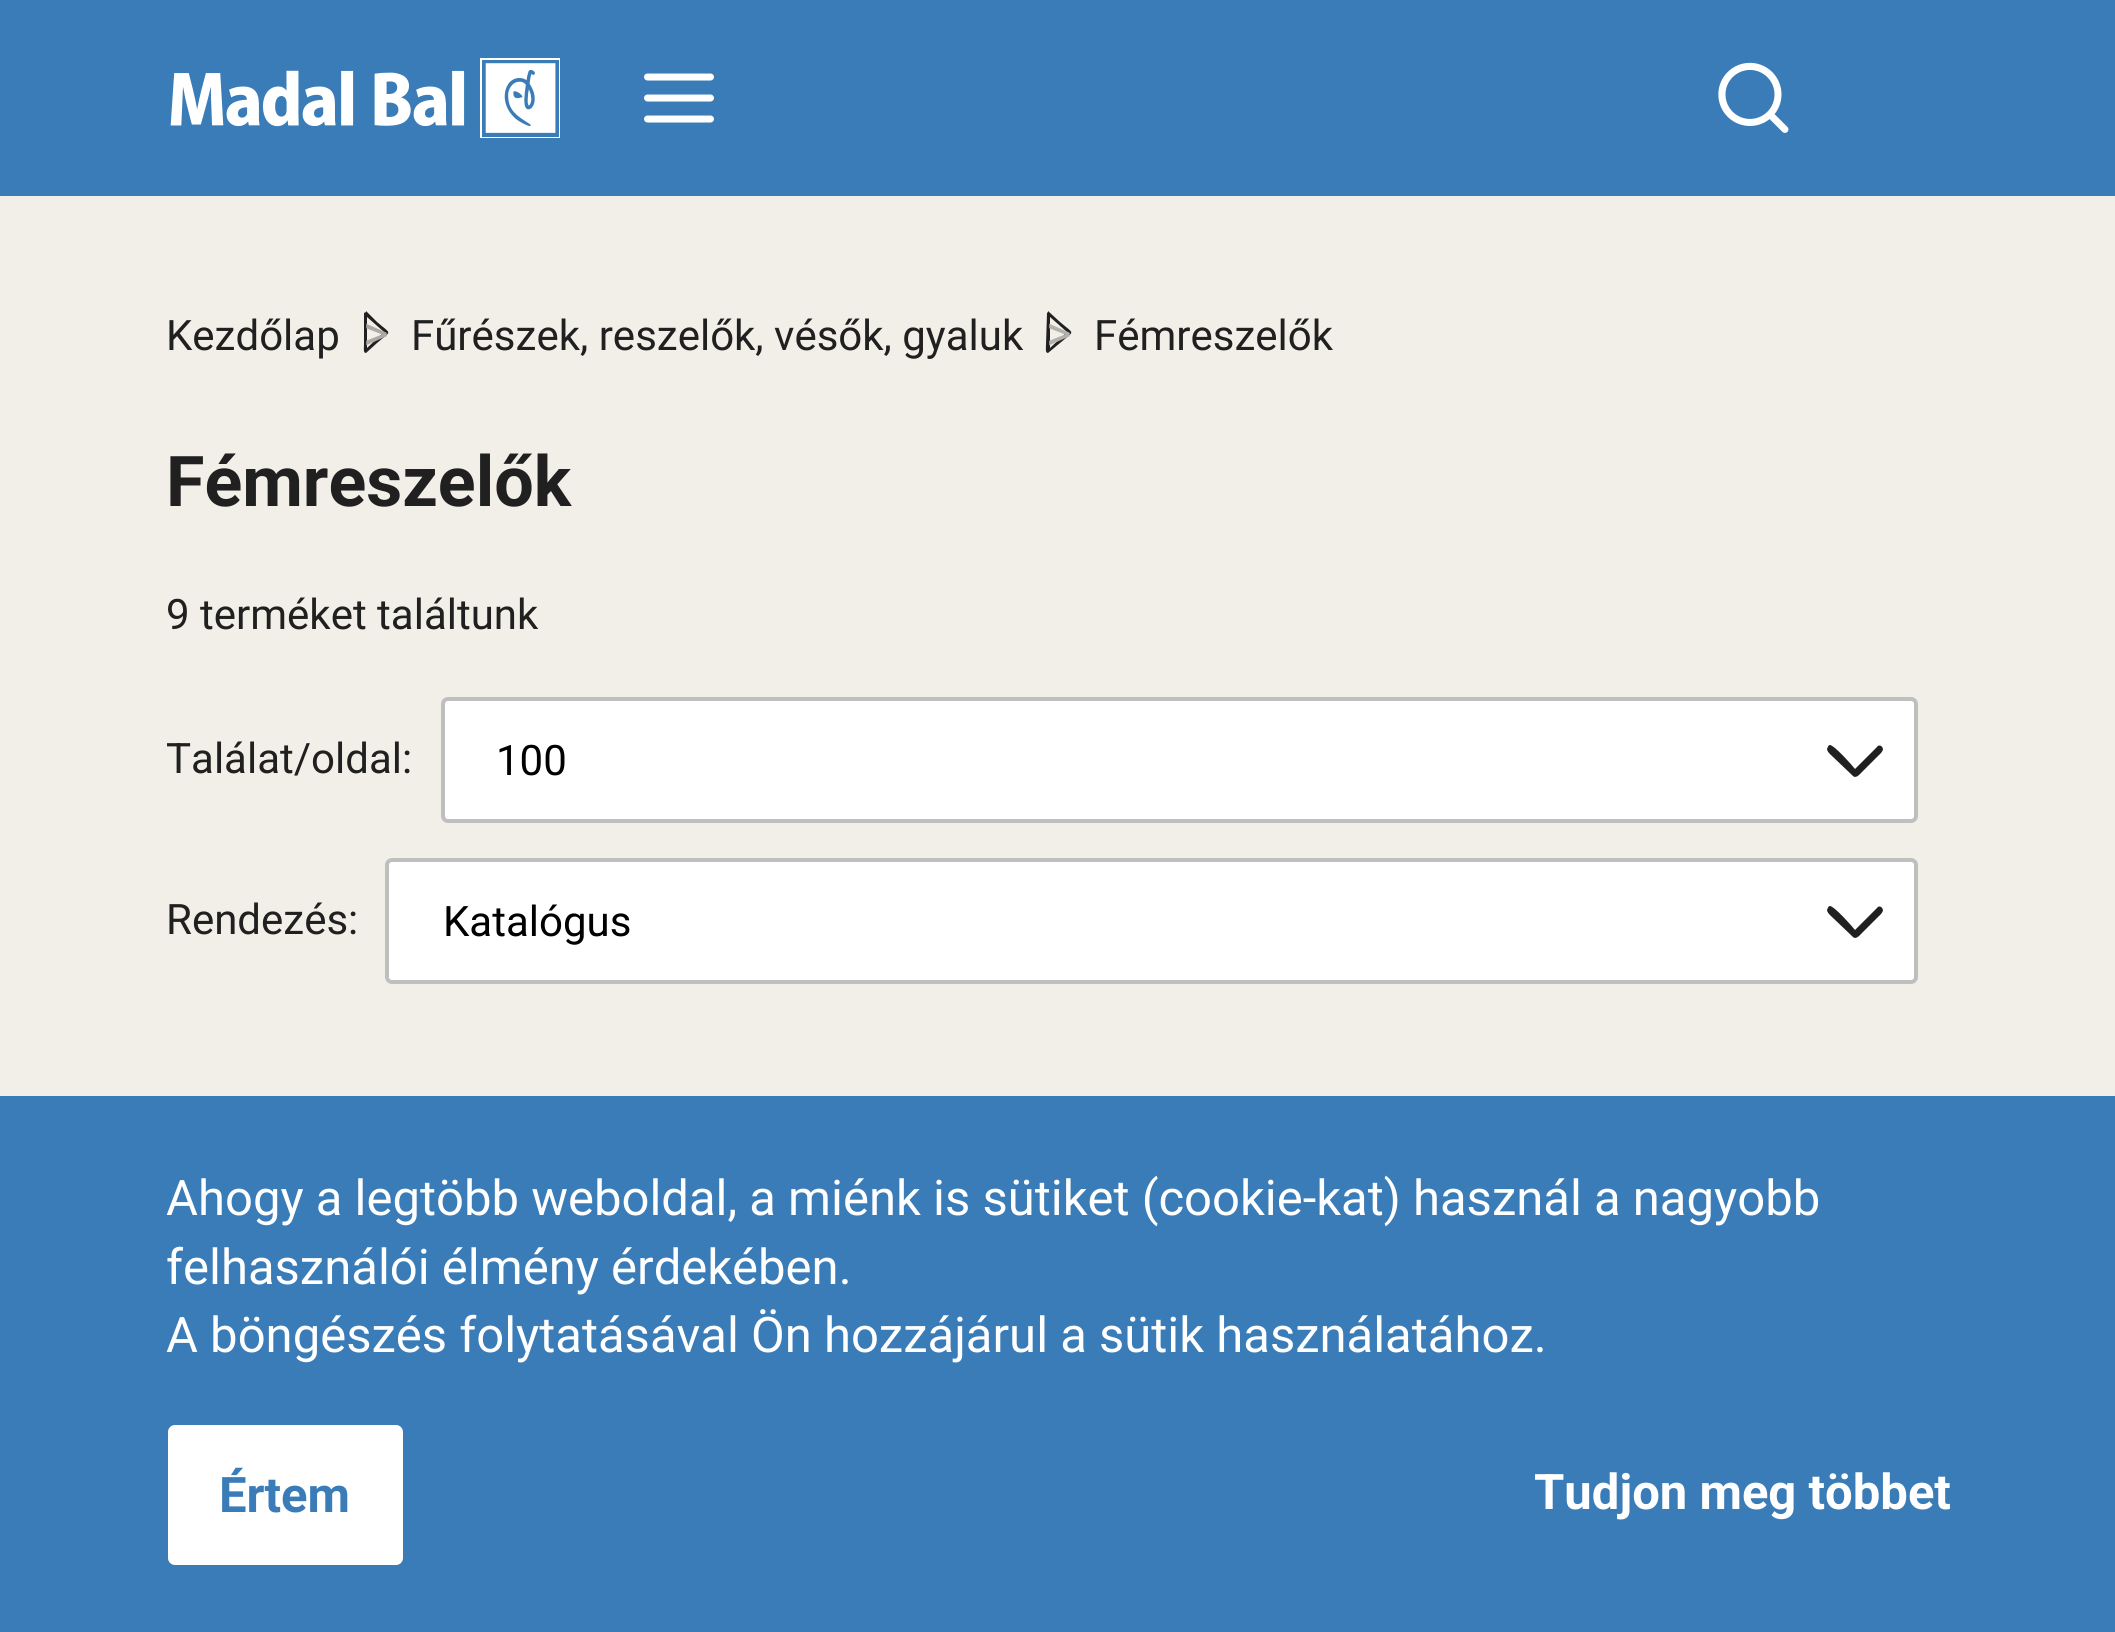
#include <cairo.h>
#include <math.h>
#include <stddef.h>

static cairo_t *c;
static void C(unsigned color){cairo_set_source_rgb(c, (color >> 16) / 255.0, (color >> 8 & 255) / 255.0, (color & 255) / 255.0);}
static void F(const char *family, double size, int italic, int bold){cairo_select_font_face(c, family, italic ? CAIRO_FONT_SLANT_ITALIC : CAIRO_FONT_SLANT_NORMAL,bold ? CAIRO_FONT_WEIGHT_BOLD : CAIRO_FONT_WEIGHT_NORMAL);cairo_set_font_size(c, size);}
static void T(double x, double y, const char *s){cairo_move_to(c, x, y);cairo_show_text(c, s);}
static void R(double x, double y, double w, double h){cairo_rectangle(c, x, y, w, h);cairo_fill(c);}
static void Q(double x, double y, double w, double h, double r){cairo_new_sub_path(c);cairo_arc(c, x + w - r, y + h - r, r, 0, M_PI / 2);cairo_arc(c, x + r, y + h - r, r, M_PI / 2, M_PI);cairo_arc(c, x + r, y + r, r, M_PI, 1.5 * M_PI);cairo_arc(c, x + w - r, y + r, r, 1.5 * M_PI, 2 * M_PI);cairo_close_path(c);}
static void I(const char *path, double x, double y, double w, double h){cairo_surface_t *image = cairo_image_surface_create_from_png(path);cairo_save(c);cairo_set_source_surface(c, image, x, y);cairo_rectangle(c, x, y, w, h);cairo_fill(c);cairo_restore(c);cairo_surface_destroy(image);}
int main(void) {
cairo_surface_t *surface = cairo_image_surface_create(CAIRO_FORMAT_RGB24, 2115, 1632);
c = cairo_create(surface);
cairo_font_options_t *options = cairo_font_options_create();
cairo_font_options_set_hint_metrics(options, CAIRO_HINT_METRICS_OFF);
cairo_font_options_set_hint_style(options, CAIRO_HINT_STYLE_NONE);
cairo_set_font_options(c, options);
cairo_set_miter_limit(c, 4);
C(0xf2efe8);
cairo_paint(c);
C(0x3a7cb8);
R(0,0,2115,196);
I("1.png",170,58,390,80);
I("2.png",644,73,70,50);
I("3.png",1718,62,71,71);
F("Roboto",42,0,0);
C(0x202020);
T(166,350,"Kezdőlap");
cairo_new_path(c);
cairo_move_to(c,367,317);
cairo_line_to(c,384,332);
cairo_line_to(c,367,348);
cairo_line_to(c,367,317);
cairo_move_to(c,366,312);
cairo_line_to(c,364,313);
cairo_line_to(c,364,345);
cairo_curve_to(c,364,348,363,353,366,353);
cairo_line_to(c,377,343);
cairo_curve_to(c,392,330,392,335,377,322);
cairo_line_to(c,366,311);
cairo_close_path(c);
cairo_fill(c);
F("Roboto",49,0,0);
C(0xaba9a5);
T(363,350,">");
F("Roboto",42,0,0);
C(0x202020);
T(411,350,"Fűrészek, reszelők, vésők, gyaluk");
cairo_new_path(c);
cairo_move_to(c,1050,317);
cairo_line_to(c,1067,332);
cairo_line_to(c,1050,348);
cairo_line_to(c,1050,317);
cairo_move_to(c,1048,312);
cairo_line_to(c,1047,313);
cairo_line_to(c,1046,345);
cairo_curve_to(c,1046,348,1045,353,1048,353);
cairo_line_to(c,1060,343);
cairo_curve_to(c,1075,330,1075,335,1060,322);
cairo_line_to(c,1048,311);
cairo_close_path(c);
cairo_fill(c);
F("Roboto",49,0,0);
C(0xb3b1ac);
T(1046,350,">");
F("Roboto",42,0,0);
C(0x202020);
T(1094,350,"Fémreszelők");
F("Roboto",70,0,1);
T(166,506,"Fémreszelők");
F("Roboto",42,0,0);
T(166,629,"9 terméket találtunk");
T(166,773,"Találat/oldal:");
C(0xffffff);
Q(443,699,1473,122,5);
cairo_fill_preserve(c);
C(0xbec0bf);
cairo_set_line_width(c,4);
cairo_stroke(c);
C(0x000000);
T(496,775,"100");
C(0x202020);
cairo_new_path(c);
cairo_move_to(c,1855,769);
cairo_curve_to(c,1852,765,1834,745,1830,745);
cairo_curve_to(c,1829,745,1828,746,1828,747);
cairo_curve_to(c,1825,750,1830,754,1832,756);
cairo_line_to(c,1853,776);
cairo_curve_to(c,1856,779,1860,774,1862,772);
cairo_line_to(c,1878,756);
cairo_curve_to(c,1880,754,1885,750,1882,747);
cairo_curve_to(c,1881,745,1878,745,1877,747);
cairo_close_path(c);
cairo_fill(c);
T(166,934,"Rendezés:");
C(0xffffff);
Q(387,860,1529,122,5);
cairo_fill_preserve(c);
C(0xbec0bf);
cairo_stroke(c);
C(0x000000);
T(443,936,"Katalógus");
C(0x202020);
cairo_new_path(c);
cairo_move_to(c,1855,930);
cairo_curve_to(c,1852,926,1834,906,1830,906);
cairo_curve_to(c,1829,906,1828,907,1828,908);
cairo_curve_to(c,1825,911,1830,915,1832,917);
cairo_line_to(c,1853,937);
cairo_curve_to(c,1856,940,1860,935,1862,933);
cairo_line_to(c,1878,917);
cairo_curve_to(c,1880,915,1885,911,1882,908);
cairo_curve_to(c,1881,906,1878,906,1877,908);
cairo_close_path(c);
cairo_fill(c);
C(0x3a7cb8);
R(0,1096,2115,536);
F("Roboto",49,0,0);
C(0xffffff);
T(166,1215,"Ahogy a legtöbb weboldal, a miénk is sütiket (cookie-kat) használ a nagyobb");
T(166,1284,"felhasználói élmény érdekében.");
T(166,1352,"A böngészés folytatásával Ön hozzájárul a sütik használatához.");
Q(168,1425,235,140,7);
cairo_fill(c);
F("Roboto",49,0,1);
C(0x3a7cb8);
T(219,1512,"Értem");
C(0xffffff);
T(1534,1509,"Tudjon meg többet");
cairo_surface_write_to_png(surface, "o.png");
cairo_font_options_destroy(options);
cairo_destroy(c);
cairo_surface_destroy(surface);
return 0;
}
